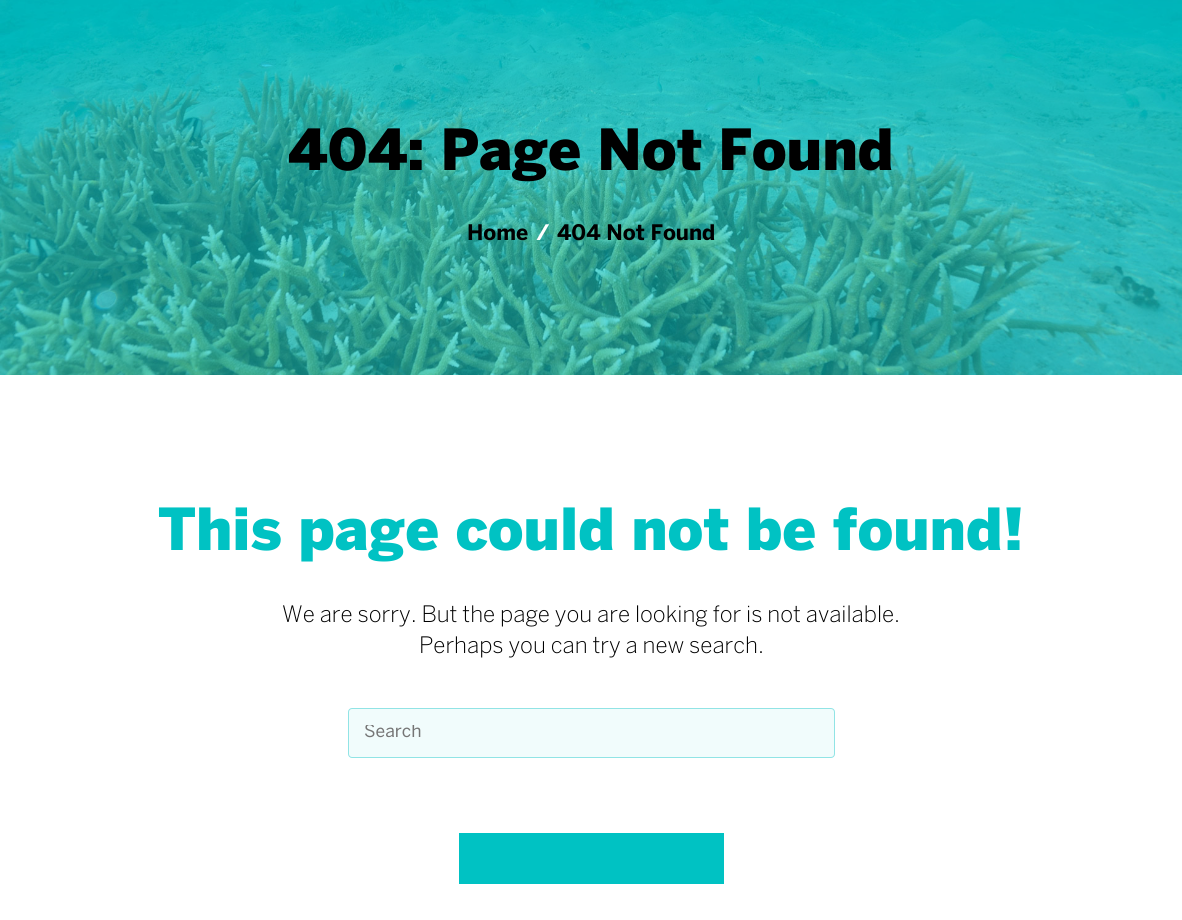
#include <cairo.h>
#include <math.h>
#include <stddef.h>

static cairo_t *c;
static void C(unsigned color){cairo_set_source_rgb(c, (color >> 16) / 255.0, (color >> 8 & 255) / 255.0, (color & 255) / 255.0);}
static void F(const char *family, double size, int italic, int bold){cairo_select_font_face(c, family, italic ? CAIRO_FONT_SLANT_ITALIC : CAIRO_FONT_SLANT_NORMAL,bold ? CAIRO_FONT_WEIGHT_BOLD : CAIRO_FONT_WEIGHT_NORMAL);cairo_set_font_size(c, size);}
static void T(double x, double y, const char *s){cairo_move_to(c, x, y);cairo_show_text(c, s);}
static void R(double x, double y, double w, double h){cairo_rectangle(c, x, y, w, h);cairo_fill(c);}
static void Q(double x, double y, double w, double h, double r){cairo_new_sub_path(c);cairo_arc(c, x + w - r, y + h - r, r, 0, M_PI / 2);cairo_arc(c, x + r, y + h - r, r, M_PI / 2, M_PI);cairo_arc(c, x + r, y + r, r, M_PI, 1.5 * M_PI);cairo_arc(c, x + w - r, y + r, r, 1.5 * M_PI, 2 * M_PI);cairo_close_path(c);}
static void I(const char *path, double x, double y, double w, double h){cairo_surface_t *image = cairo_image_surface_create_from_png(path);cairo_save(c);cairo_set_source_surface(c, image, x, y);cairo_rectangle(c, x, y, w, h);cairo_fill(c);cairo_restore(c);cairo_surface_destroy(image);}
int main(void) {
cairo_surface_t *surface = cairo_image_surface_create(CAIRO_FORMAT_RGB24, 1182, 920);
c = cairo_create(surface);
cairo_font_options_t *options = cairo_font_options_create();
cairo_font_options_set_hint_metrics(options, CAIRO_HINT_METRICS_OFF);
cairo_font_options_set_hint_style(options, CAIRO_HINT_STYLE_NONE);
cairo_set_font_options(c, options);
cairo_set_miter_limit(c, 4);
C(0xffffff);
cairo_paint(c);
I("1.png",0,0,1182,375);
F("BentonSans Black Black",56.25,0,0);
C(0x000000);
T(288,170,"404: Page Not Found");
F("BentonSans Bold",21.25,0,1);
T(467,240,"Home");
C(0xffffff);
T(536,240,"/");
C(0x000000);
T(557,240,"404 Not Found");
F("BentonSans Black Black",57.5,0,0);
C(0x00c2c3);
T(158,550,"This page could not be found!");
F("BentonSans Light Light",22.5,0,0);
C(0x000000);
T(282,622,"We are sorry. But the page you are looking for is not available.");
T(419,653,"Perhaps you can try a new search.");
C(0xf1fcfc);
Q(348,708,487,50,4);
cairo_fill(c);
Q(348.5,708.5,486,49,3.5);
cairo_set_source_rgba(c,0,0.761,0.765,0.4);
cairo_set_line_width(c,1);
cairo_stroke(c);
cairo_save(c);
cairo_rectangle(c,364,725,455,18);
cairo_clip(c);
F("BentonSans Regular",17.5,0,0);
C(0x757575);
T(364,737,"Search");
cairo_restore(c);
C(0x00c2c3);
R(459,833,265,51);
cairo_surface_write_to_png(surface, "o.png");
cairo_font_options_destroy(options);
cairo_destroy(c);
cairo_surface_destroy(surface);
return 0;
}
